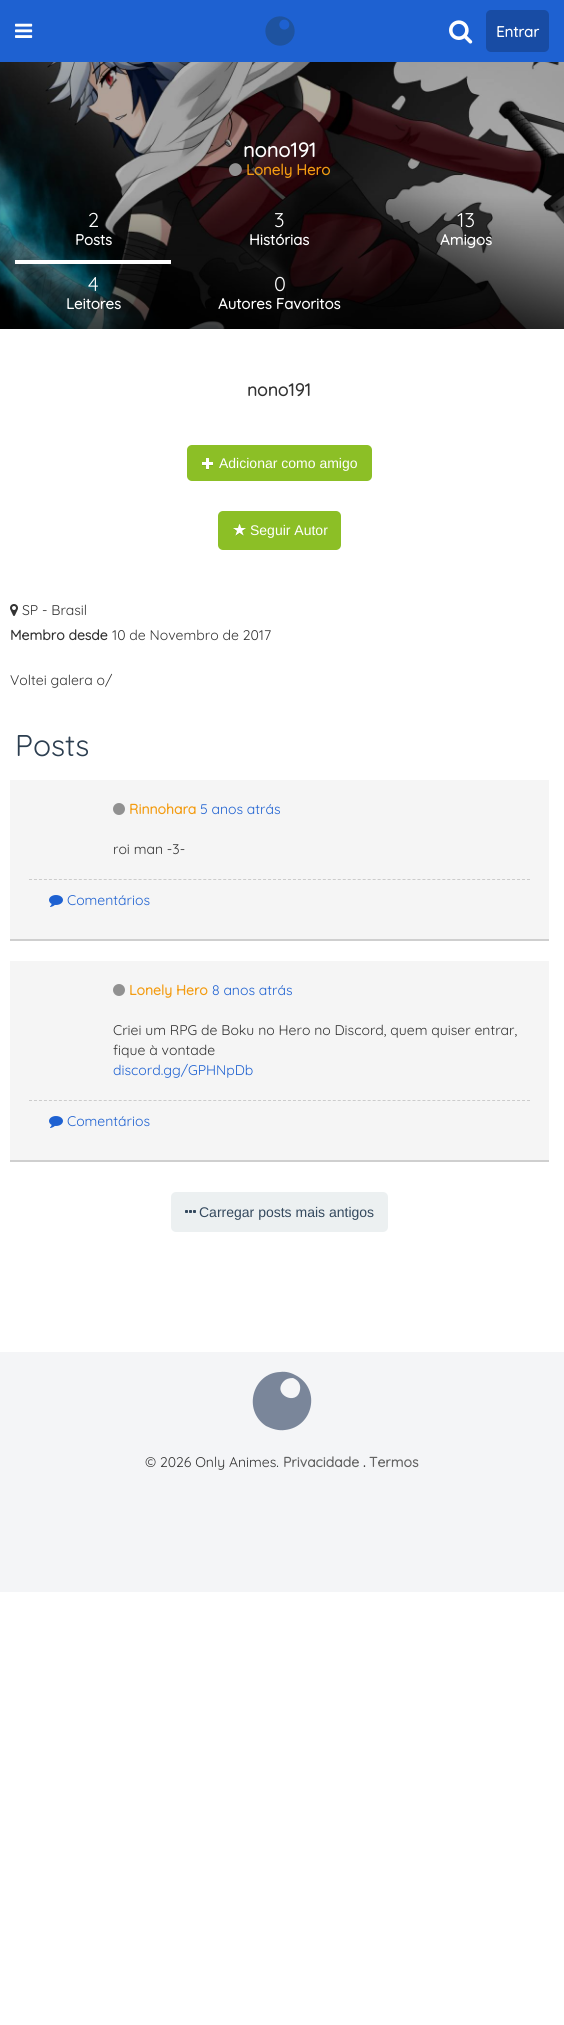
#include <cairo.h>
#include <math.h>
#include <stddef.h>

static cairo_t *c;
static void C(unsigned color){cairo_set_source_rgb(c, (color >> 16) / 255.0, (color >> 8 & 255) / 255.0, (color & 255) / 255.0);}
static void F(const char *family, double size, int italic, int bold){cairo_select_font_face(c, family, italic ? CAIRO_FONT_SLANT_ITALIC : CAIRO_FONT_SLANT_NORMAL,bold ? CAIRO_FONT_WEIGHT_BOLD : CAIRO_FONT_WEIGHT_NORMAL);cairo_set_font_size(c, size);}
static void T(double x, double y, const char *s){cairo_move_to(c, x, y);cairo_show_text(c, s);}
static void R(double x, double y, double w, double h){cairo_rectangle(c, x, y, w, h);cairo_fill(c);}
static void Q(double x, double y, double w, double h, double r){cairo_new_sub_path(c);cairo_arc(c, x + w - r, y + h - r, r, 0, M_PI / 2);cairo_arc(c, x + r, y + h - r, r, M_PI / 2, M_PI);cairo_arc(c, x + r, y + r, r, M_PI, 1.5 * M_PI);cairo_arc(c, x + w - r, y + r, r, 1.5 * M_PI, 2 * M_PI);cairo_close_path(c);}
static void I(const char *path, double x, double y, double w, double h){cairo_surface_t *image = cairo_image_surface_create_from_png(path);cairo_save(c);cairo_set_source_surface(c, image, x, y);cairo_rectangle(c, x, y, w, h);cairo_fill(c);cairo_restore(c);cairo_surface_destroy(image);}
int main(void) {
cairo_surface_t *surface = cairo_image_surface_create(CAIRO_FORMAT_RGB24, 564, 2025);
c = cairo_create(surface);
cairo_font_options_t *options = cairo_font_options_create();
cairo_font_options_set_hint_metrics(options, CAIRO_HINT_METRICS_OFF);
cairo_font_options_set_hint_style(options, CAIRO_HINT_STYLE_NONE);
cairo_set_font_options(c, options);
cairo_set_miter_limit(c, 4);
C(0xffffff);
cairo_paint(c);
C(0x1e61d1);
R(0,0,564,62);
I("1.png",15,23,18,15);
I("2.png",265,16,30,30);
I("3.png",449,20,24,24);
C(0x184ca4);
Q(486,10,63,42,5);
cairo_fill(c);
F("Quicksand",15,0,1);
C(0xffffff);
T(496,37,"Entrar");
I("4.png",0,62,564,267);
F("Quicksand",20,0,1);
T(243,157,"nono191");
C(0x919191);
cairo_new_path(c);
cairo_move_to(c,241,166.5);
cairo_curve_to(c,245,173.5,234,180,230,173);
cairo_curve_to(c,225.5,165.5,236.5,159,241,166.5);
cairo_close_path(c);
cairo_fill(c);
F("Quicksand",15,0,1);
C(0xf39c12);
T(246,175,"Lonely Hero");
F("Quicksand Light",20,0,0);
C(0xffffff);
T(88,227,"2");
F("Quicksand",15,0,1);
T(75,245,"Posts");
R(15,260,156,4);
F("Quicksand Light",20,0,0);
T(274,227,"3");
F("Quicksand",15,0,1);
T(249,245,"Histórias");
F("Quicksand Light",20,0,0);
T(457,227,"13");
F("Quicksand",15,0,1);
T(440,245,"Amigos");
F("Quicksand Light",20,0,0);
T(88,291,"4");
F("Quicksand",15,0,1);
T(66,309,"Leitores");
F("Quicksand Light",20,0,0);
T(274,291,"0");
F("Quicksand",15,0,1);
T(218,309,"Autores Favoritos");
F("Quicksand",17.5,0,1);
C(0x333333);
T(247,396,"nono191");
C(0x8cbf26);
Q(187,445,185,36,5);
cairo_fill(c);
I("5.png",202,458,11,12);
F("Liberation Sans",14,0,0);
C(0xffffff);
T(219,468,"Adicionar como amigo");
C(0x8cbf26);
Q(218,511,123,39,5);
cairo_fill(c);
I("6.png",233,524,13,12);
C(0xffffff);
T(250,535,"Seguir Autor");
I("7.png",10,604,8,12);
F("Quicksand Light",14,0,0);
C(0x333333);
T(22,615,"SP - Brasil");
F("Quicksand",14,0,1);
T(10,640,"Membro desde");
F("Quicksand Light",14,0,0);
T(112,640,"10 de Novembro de 2017");
T(10,685,"Voltei galera o/");
F("Quicksand Light",30,0,0);
C(0x2c3e50);
T(15,756,"Posts");
C(0xf5f5f5);
R(10,780,539,159);
C(0xcfcfcf);
R(10,939,539,2);
I("8.png",113,803,12,12);
F("Quicksand",14,0,1);
C(0xf39c12);
T(129,814,"Rinnohara");
F("Quicksand Light",14,0,0);
C(0x1e61d1);
T(200,814,"5 anos atrás");
C(0x333333);
T(113,854,"roi man -3-");
cairo_new_path(c);
cairo_move_to(c,29,879.5);
cairo_line_to(c,530,879.5);
C(0xcccccc);
cairo_set_line_width(c,1);
cairo_set_dash(c,(double[]){3,1.98},2,0);
cairo_stroke(c);
I("9.png",49,895,14,12);
C(0x1e61d1);
T(67,905,"Comentários");
C(0xf5f5f5);
R(10,961,539,199);
C(0xcfcfcf);
R(10,1160,539,2);
I("8.png",113,984,12,12);
F("Quicksand",14,0,1);
C(0xf39c12);
T(129,995,"Lonely Hero");
F("Quicksand Light",14,0,0);
C(0x1e61d1);
T(212,995,"8 anos atrás");
C(0x333333);
T(113,1035,"Criei um RPG de Boku no Hero no Discord, quem quiser entrar,");
T(113,1055,"fique à vontade");
C(0x1e61d1);
T(113,1075,"discord.gg/GPHNpDb");
cairo_new_path(c);
cairo_move_to(c,29,1100.5);
cairo_line_to(c,530,1100.5);
C(0xcccccc);
cairo_stroke(c);
I("9.png",49,1116,14,12);
C(0x1e61d1);
T(67,1126,"Comentários");
C(0xecf0f1);
Q(171,1192,217,40,5);
cairo_fill(c);
I("10.png",185,1210,11,3);
F("Liberation Sans",14,0,0);
C(0x34495e);
T(199,1217,"Carregar posts mais antigos");
C(0xf4f5f7);
R(0,1352,564,240);
C(0x7a869a);
cairo_new_path(c);
cairo_move_to(c,280,1372);
cairo_curve_to(c,286,1371,292,1373,297,1376);
cairo_curve_to(c,321,1390,313,1427,285,1430);
cairo_curve_to(c,279,1431,272,1429,266,1426);
cairo_curve_to(c,242,1410,253,1373,280,1372);
cairo_close_path(c);
cairo_move_to(c,293,1378);
cairo_curve_to(c,289,1378,286,1379,284,1381);
cairo_curve_to(c,271,1394,297,1407,300,1390);
cairo_curve_to(c,301,1384,298,1380,293,1378);
cairo_close_path(c);
cairo_fill(c);
F("Quicksand Light",14,0,0);
C(0x333333);
T(145,1467,"© 2026 Only Animes.");
F("Quicksand",14,0,1);
C(0x636363);
T(283,1467,"Privacidade");
C(0x333333);
T(363,1467,".");
C(0x636363);
T(369,1467,"Termos");
cairo_surface_write_to_png(surface, "o.png");
cairo_font_options_destroy(options);
cairo_destroy(c);
cairo_surface_destroy(surface);
return 0;
}
